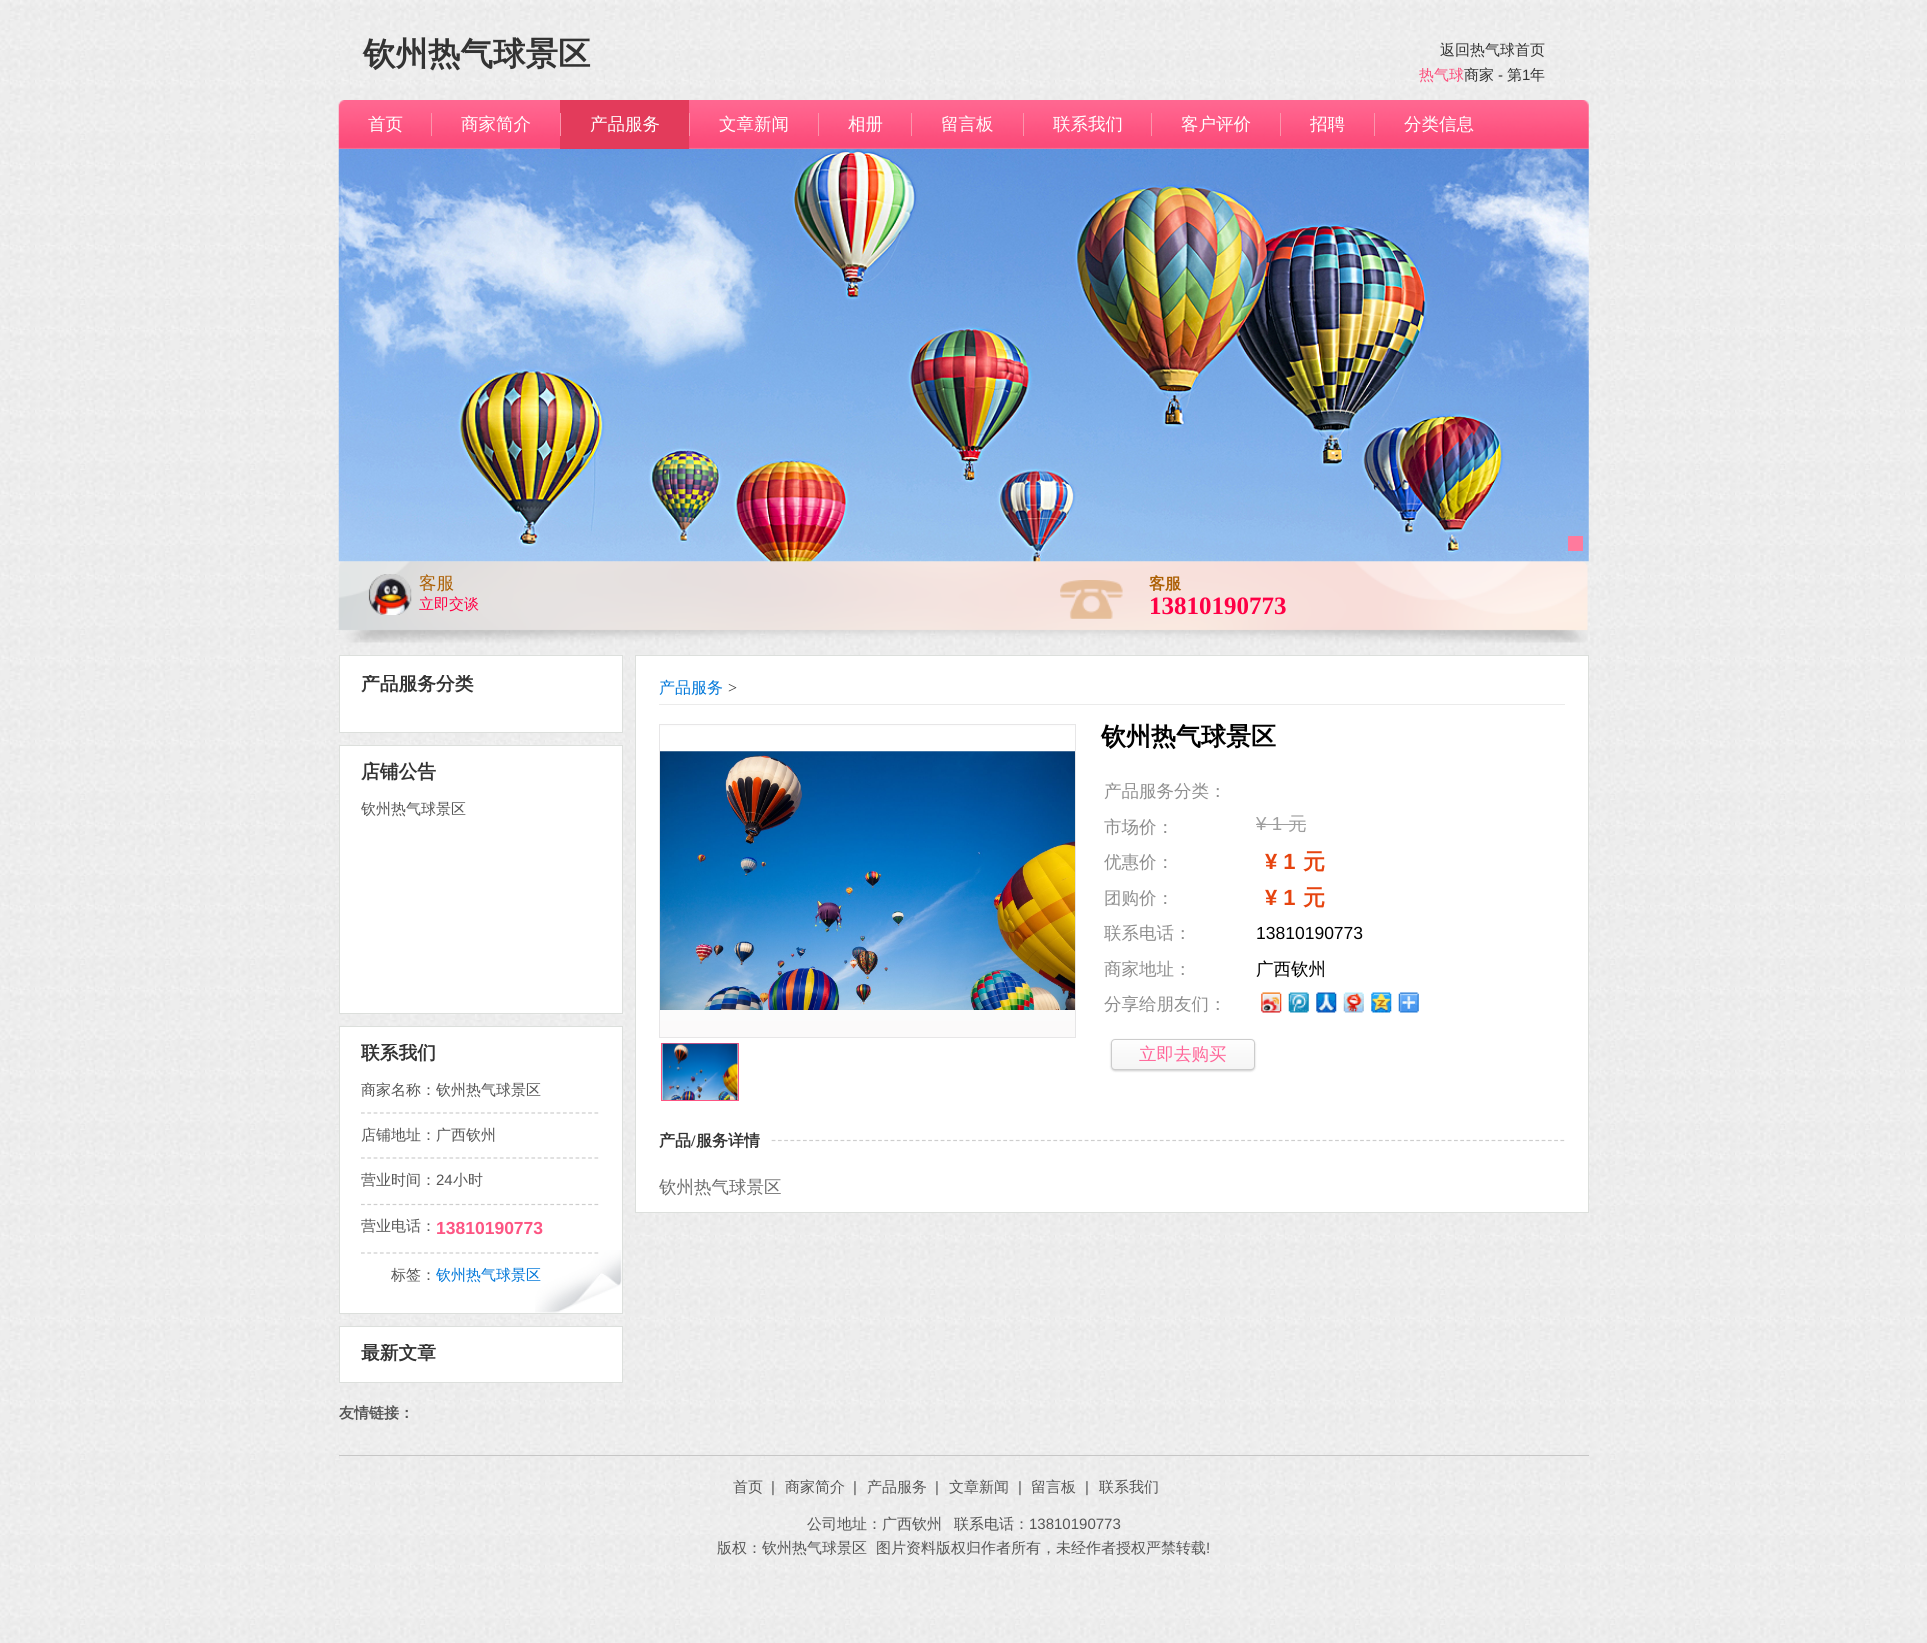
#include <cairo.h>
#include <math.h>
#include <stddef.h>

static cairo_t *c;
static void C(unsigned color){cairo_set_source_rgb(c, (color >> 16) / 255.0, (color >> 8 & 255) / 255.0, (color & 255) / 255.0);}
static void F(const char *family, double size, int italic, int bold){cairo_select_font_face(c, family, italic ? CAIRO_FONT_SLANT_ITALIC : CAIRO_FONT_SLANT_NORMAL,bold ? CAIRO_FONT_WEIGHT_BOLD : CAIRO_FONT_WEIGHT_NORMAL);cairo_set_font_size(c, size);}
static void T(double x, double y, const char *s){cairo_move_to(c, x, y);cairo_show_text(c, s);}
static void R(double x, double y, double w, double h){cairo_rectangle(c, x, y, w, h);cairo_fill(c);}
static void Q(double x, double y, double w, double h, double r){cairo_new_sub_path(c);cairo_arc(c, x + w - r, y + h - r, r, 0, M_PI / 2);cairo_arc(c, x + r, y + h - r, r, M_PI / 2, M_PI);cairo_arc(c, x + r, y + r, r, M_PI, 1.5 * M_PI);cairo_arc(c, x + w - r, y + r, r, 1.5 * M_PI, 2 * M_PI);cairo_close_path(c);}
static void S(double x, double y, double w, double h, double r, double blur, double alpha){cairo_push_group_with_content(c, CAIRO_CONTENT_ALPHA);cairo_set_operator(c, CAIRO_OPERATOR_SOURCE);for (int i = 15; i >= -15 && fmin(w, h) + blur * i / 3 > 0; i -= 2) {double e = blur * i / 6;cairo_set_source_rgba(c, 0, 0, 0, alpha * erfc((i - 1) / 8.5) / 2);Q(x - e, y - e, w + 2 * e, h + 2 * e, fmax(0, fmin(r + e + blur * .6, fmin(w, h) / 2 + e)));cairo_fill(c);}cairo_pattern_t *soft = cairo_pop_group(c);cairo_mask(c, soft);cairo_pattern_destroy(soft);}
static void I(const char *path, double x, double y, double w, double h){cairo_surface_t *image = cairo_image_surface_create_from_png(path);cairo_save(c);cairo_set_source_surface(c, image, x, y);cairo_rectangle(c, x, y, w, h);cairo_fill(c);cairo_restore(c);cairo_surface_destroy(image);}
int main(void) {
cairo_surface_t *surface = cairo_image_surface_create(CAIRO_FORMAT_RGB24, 1927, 1643);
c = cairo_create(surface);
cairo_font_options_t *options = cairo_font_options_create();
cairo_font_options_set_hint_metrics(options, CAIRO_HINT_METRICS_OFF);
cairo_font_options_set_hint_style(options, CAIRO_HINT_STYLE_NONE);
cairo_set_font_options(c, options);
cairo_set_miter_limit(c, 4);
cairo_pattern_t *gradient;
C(0xffffff);
cairo_paint(c);
I("1.png",0,0,1927,1643);
F("WenQuanYi Zen Hei",32.5,0,1);
C(0x333333);
T(363,65,"钦州热气球景区");
F("WenQuanYi Zen Hei Medium",15,0,0);
T(1440,55,"返回热气球首页");
C(0xfb4d7b);
T(1419,80,"热气球");
C(0x333333);
T(1464,80,"商家");
F("Liberation Sans",15,0,0);
T(1498,80,"-");
F("WenQuanYi Zen Hei Medium",15,0,0);
T(1507,80,"第");
F("Liberation Sans",15,0,0);
T(1522,80,"1");
F("WenQuanYi Zen Hei Medium",15,0,0);
T(1530,80,"年");
I("4.png",338,561,1250,82);
I("3.png",338,148,1251,414);
I("2.png",338,100,1251,49);
F("WenQuanYi Zen Hei Medium",17.5,0,0);
C(0xffffff);
T(368,130,"首页");
C(0xfa95ab);
R(431,113,1,23);
C(0xffffff);
T(461,130,"商家简介");
C(0xe33b5b);
R(560,100,129,49);
C(0xfa95ab);
R(560,113,1,23);
C(0xffffff);
T(590,130,"产品服务");
C(0xfa95ab);
R(689,113,1,23);
C(0xffffff);
T(719,130,"文章新闻");
C(0xfa95ab);
R(818,113,1,23);
C(0xffffff);
T(848,130,"相册");
C(0xfa95ab);
R(911,113,1,23);
C(0xffffff);
T(941,130,"留言板");
C(0xfa95ab);
R(1023,113,1,23);
C(0xffffff);
T(1053,130,"联系我们");
C(0xfa95ab);
R(1151,113,1,23);
C(0xffffff);
T(1181,130,"客户评价");
C(0xfa95ab);
R(1280,113,1,23);
C(0xffffff);
T(1310,130,"招聘");
C(0xfa95ab);
R(1374,113,1,23);
C(0xffffff);
T(1404,130,"分类信息");
C(0xff7a9d);
R(1568,536,15,15);
I("5.png",368,574,44,41);
C(0xac5f03);
T(419,589,"客服");
F("WenQuanYi Zen Hei Medium",15,0,0);
C(0xff0045);
T(419,609,"立即交谈");
I("6.png",1060,580,63,39);
F("WenQuanYi Zen Hei",16,0,1);
C(0xac5f03);
T(1149,589,"客服");
F("Liberation Serif",25,0,1);
C(0xff0045);
T(1149,614,"13810190773");
C(0xffffff);
cairo_rectangle(c,339.5,655.5,283,77);
cairo_fill_preserve(c);
C(0xdcdfdc);
cairo_set_line_width(c,1);
cairo_stroke(c);
cairo_save(c);
cairo_rectangle(c,361,675,254,19);
cairo_clip(c);
F("WenQuanYi Zen Hei",18.75,0,1);
C(0x333333);
T(361,690,"产品服务分类");
cairo_restore(c);
C(0xffffff);
cairo_rectangle(c,339.5,745.5,283,268);
cairo_fill_preserve(c);
C(0xdcdfdc);
cairo_stroke(c);
F("WenQuanYi Zen Hei",18.75,0,1);
C(0x333333);
T(361,778,"店铺公告");
F("WenQuanYi Zen Hei Medium",15,0,0);
C(0x555555);
T(361,814,"钦州热气球景区");
C(0xffffff);
R(340,1027,282,286);
I("7.png",535,1250,87,63);
cairo_rectangle(c,339.5,1026.5,283,287);
C(0xdcdfdc);
cairo_stroke(c);
cairo_save(c);
cairo_rectangle(c,361,1044,238,19);
cairo_clip(c);
F("WenQuanYi Zen Hei",18.75,0,1);
C(0x333333);
T(361,1059,"联系我们");
cairo_restore(c);
cairo_new_path(c);
cairo_move_to(c,361,1113);
cairo_line_to(c,599,1113);
C(0xcecece);
cairo_set_line_width(c,1.2);
cairo_set_dash(c,(double[]){3.75,2.56},2,0);
cairo_stroke(c);
C(0x555555);
T(361,1095,"商家名称：钦州热气球景区");
cairo_new_path(c);
cairo_move_to(c,361,1158);
cairo_line_to(c,599,1158);
C(0xcecece);
cairo_stroke(c);
C(0x555555);
T(361,1140,"店铺地址：广西钦州");
cairo_new_path(c);
cairo_move_to(c,361,1204.5);
cairo_line_to(c,599,1204.5);
C(0xcecece);
cairo_stroke(c);
C(0x555555);
T(361,1185,"营业时间：");
F("Liberation Sans",15,0,0);
T(436,1185,"24");
F("WenQuanYi Zen Hei Medium",15,0,0);
T(453,1185,"小时");
cairo_new_path(c);
cairo_move_to(c,361,1253);
cairo_line_to(c,599,1253);
C(0xcecece);
cairo_stroke(c);
C(0x555555);
T(361,1231,"营业电话：");
F("Liberation Sans",17.5,0,1);
C(0xfd5583);
T(436,1234,"13810190773");
F("WenQuanYi Zen Hei Medium",15,0,0);
C(0x555555);
T(391,1280,"标签：");
C(0x0077d9);
T(436,1280,"钦州热气球景区");
C(0xffffff);
cairo_rectangle(c,339.5,1326.5,283,56);
cairo_fill_preserve(c);
C(0xdcdfdc);
cairo_set_line_width(c,1);
cairo_set_dash(c,NULL,0,0);
cairo_stroke(c);
cairo_save(c);
cairo_rectangle(c,361,1344,238,19);
cairo_clip(c);
F("WenQuanYi Zen Hei",18.75,0,1);
C(0x333333);
T(361,1359,"最新文章");
cairo_restore(c);
C(0xffffff);
cairo_rectangle(c,635.5,655.5,953,557);
cairo_fill_preserve(c);
C(0xdcdfdc);
cairo_stroke(c);
C(0xebebeb);
R(659,704,906,1);
F("WenQuanYi Zen Hei Medium",16,0,0);
C(0x0077d9);
T(659,693,"产品服务");
F("Liberation Serif",16,0,0);
C(0x333333);
T(728,693,">");
I("8.png",660,725,415,312);
cairo_rectangle(c,659.5,724.5,416,313);
C(0xe7e6e7);
cairo_stroke(c);
I("9.png",660,751,415,259);
cairo_rectangle(c,661.5,1043.5,77,57);
C(0xfd5583);
cairo_stroke(c);
I("10.png",662,1043,76,57);
F("WenQuanYi Zen Hei",25,0,1);
C(0x000000);
T(1101,745,"钦州热气球景区");
F("WenQuanYi Zen Hei Medium",17.5,0,0);
C(0x8e8e8e);
T(1104,797,"产品服务分类：");
T(1104,833,"市场价：");
F("Liberation Sans",18.75,0,0);
C(0x9e9e9e);
T(1256,830,"¥ 1");
F("WenQuanYi Zen Hei Medium",18.75,0,0);
T(1288,830,"元");
R(1256,824,50,1);
F("WenQuanYi Zen Hei Medium",17.5,0,0);
C(0x8e8e8e);
T(1104,868,"优惠价：");
F("Liberation Sans",22,0,1);
C(0xe6440f);
T(1265,869,"¥ 1");
F("WenQuanYi Zen Hei",22,0,1);
T(1303,869,"元");
F("WenQuanYi Zen Hei Medium",17.5,0,0);
C(0x8e8e8e);
T(1104,904,"团购价：");
F("Liberation Sans",22,0,1);
C(0xe6440f);
T(1265,905,"¥ 1");
F("WenQuanYi Zen Hei",22,0,1);
T(1303,905,"元");
F("WenQuanYi Zen Hei Medium",17.5,0,0);
C(0x8e8e8e);
T(1104,939,"联系电话：");
F("Liberation Sans",17.5,0,0);
C(0x000000);
T(1256,939,"13810190773");
F("WenQuanYi Zen Hei Medium",17.5,0,0);
C(0x8e8e8e);
T(1104,975,"商家地址：");
C(0x000000);
T(1256,975,"广西钦州");
C(0x8e8e8e);
T(1104,1010,"分享给朋友们：");
I("11.png",1261,992,21,21);
I("12.png",1288,992,21,21);
I("13.png",1316,992,21,21);
I("14.png",1343,992,21,21);
I("15.png",1371,992,21,21);
I("16.png",1398,992,21,21);
C(0x000000);
S(1111,1040,144,31,4,1,.2);
cairo_save(c);
Q(1111,1039,144,31,4);
cairo_clip(c);
gradient = cairo_pattern_create_linear(1183,1040,1183,1069);
cairo_pattern_add_color_stop_rgba(gradient,0,0.996,0.996,0.996,1);
cairo_pattern_add_color_stop_rgba(gradient,.4,0.98,0.98,0.98,1);
cairo_pattern_add_color_stop_rgba(gradient,1,0.961,0.961,0.961,1);
cairo_set_source(c,gradient);
cairo_pattern_destroy(gradient);
R(1111,1040,144,29);
cairo_restore(c);
Q(1111.5,1039.5,143,30,3.5);
C(0xcccccc);
cairo_stroke(c);
C(0xff6699);
T(1139,1060,"立即去购买");
cairo_new_path(c);
cairo_move_to(c,659,1140.5);
cairo_line_to(c,1565,1140.5);
C(0xcecece);
cairo_set_line_width(c,1.2);
cairo_set_dash(c,(double[]){3.75,2.51},2,0);
cairo_stroke(c);
C(0xffffff);
R(659,1139,111,3);
F("WenQuanYi Zen Hei",16,0,1);
C(0x333333);
T(659,1146,"产品");
F("Liberation Serif",16,0,1);
T(691,1146,"/");
F("WenQuanYi Zen Hei",16,0,1);
T(696,1146,"服务详情");
F("WenQuanYi Zen Hei Medium",17.5,0,0);
C(0x6e6e6e);
T(659,1193,"钦州热气球景区");
F("WenQuanYi Zen Hei",15,0,1);
C(0x555555);
T(339,1418,"友情链接：");
C(0xc6c6c6);
R(339,1455,1250,1);
F("WenQuanYi Zen Hei Medium",15,0,0);
C(0x555555);
T(733,1492,"首页");
F("Liberation Sans",15,0,0);
T(771,1492,"|");
F("WenQuanYi Zen Hei Medium",15,0,0);
T(785,1492,"商家简介");
F("Liberation Sans",15,0,0);
T(853,1492,"|");
F("WenQuanYi Zen Hei Medium",15,0,0);
T(867,1492,"产品服务");
F("Liberation Sans",15,0,0);
T(935,1492,"|");
F("WenQuanYi Zen Hei Medium",15,0,0);
T(949,1492,"文章新闻");
F("Liberation Sans",15,0,0);
T(1018,1492,"|");
F("WenQuanYi Zen Hei Medium",15,0,0);
T(1031,1492,"留言板");
F("Liberation Sans",15,0,0);
T(1085,1492,"|");
F("WenQuanYi Zen Hei Medium",15,0,0);
T(1099,1492,"联系我们");
T(807,1529,"公司地址：广西钦州");
T(954,1529,"联系电话：");
F("Liberation Sans",15,0,0);
T(1029,1529,"13810190773");
F("WenQuanYi Zen Hei Medium",15,0,0);
T(717,1553,"版权：钦州热气球景区");
T(876,1553,"图片资料版权归作者所有，未经作者授权严禁转载");
F("Liberation Sans",15,0,0);
T(1206,1553,"!");
cairo_surface_write_to_png(surface, "o.png");
cairo_font_options_destroy(options);
cairo_destroy(c);
cairo_surface_destroy(surface);
return 0;
}
